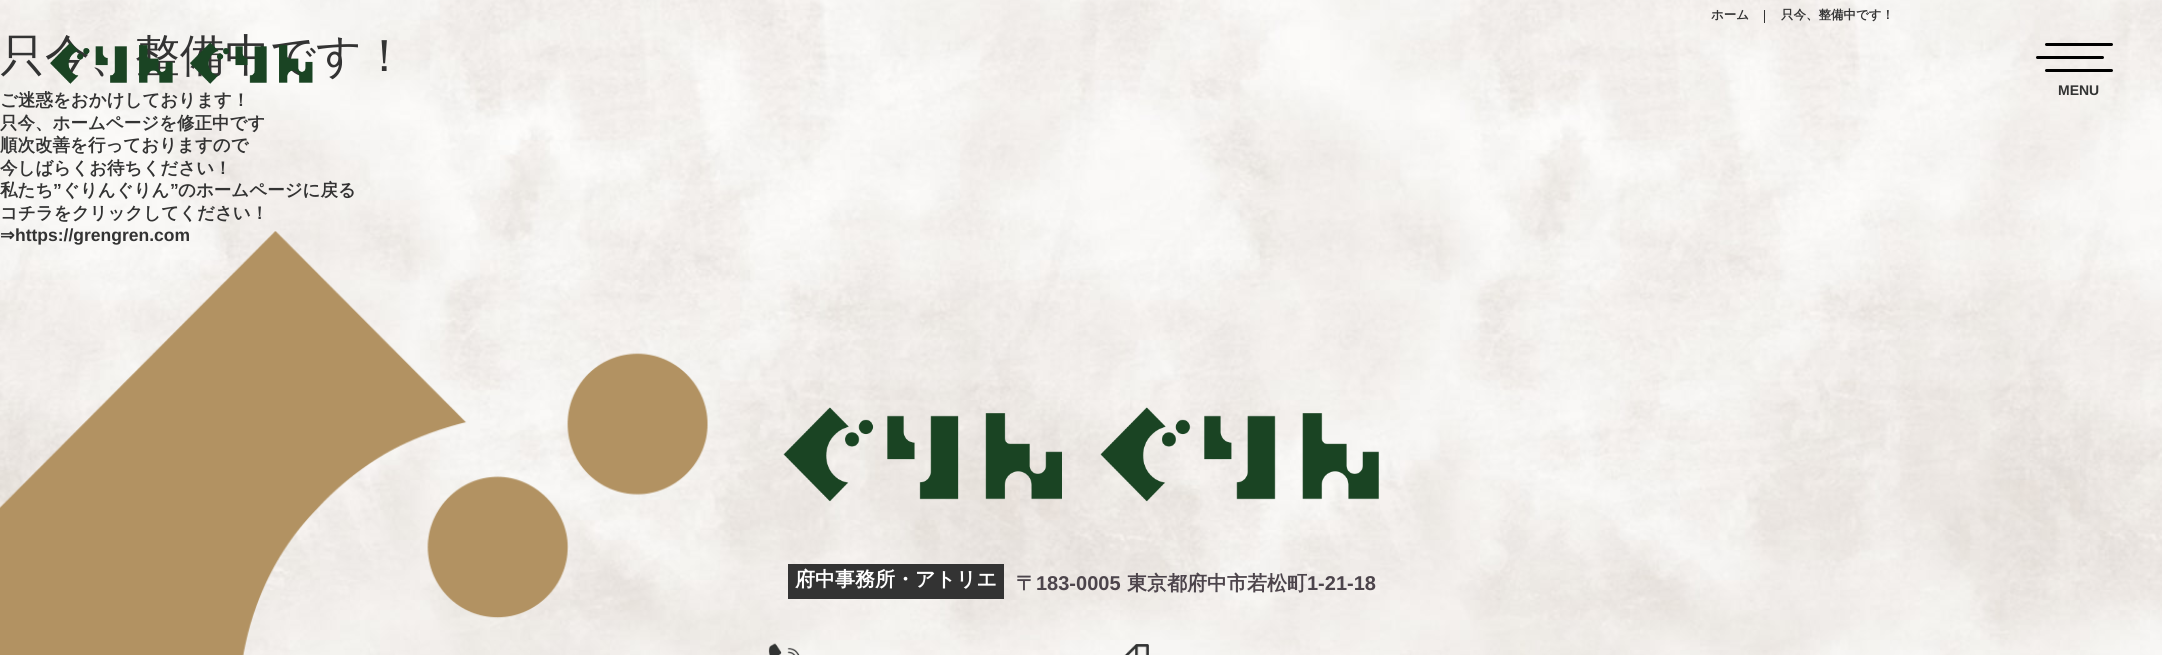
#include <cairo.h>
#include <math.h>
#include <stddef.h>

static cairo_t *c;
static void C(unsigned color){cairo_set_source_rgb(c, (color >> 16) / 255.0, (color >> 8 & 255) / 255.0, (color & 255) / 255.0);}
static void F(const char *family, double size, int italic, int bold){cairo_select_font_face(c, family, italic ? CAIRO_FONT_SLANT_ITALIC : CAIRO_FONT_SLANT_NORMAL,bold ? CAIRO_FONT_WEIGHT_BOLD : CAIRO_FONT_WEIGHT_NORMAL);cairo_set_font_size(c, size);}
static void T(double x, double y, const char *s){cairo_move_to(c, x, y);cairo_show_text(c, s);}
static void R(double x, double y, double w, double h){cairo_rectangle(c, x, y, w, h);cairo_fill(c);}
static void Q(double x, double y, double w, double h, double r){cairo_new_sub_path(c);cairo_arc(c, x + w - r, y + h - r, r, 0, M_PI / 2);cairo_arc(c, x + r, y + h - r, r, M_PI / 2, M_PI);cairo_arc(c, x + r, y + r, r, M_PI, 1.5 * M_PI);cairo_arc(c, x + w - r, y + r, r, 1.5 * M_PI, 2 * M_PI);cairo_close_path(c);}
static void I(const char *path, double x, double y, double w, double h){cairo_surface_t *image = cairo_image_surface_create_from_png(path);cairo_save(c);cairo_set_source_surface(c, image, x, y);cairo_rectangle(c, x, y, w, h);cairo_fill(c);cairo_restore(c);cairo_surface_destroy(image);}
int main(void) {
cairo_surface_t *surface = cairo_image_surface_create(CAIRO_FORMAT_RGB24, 2162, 655);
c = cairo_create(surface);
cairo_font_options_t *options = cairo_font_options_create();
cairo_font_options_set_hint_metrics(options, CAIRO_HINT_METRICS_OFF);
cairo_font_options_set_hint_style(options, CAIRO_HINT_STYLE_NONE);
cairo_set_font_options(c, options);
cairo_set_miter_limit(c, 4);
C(0xffffff);
cairo_paint(c);
I("1.png",0,0,2162,655);
F("WenQuanYi Zen Hei",12.5,0,1);
C(0x333333);
T(1711,19,"ホーム");
R(1764,10,1,13);
T(1781,19,"只今、整備中です！");
F("WenQuanYi Zen Hei Medium",45,0,0);
T(0,71,"只今、整備中です！");
F("WenQuanYi Zen Hei",17.5,0,1);
T(0,106,"ご迷惑をおかけしております！");
T(0,129,"只今、ホームページを修正中です");
T(0,151,"順次改善を行っておりますので");
T(0,174,"今しばらくお待ちください！");
T(0,196,"私たち");
F("Liberation Sans",17.5,0,1);
T(53,196,"”");
F("WenQuanYi Zen Hei",17.5,0,1);
T(62,196,"ぐりんぐりん");
F("Liberation Sans",17.5,0,1);
T(170,196,"”");
F("WenQuanYi Zen Hei",17.5,0,1);
T(178,196,"のホームページに戻る");
T(0,219,"コチラをクリックしてください！");
F("DejaVu Sans",17.5,0,1);
T(0,241,"⇒");
F("Liberation Sans",17.5,0,1);
T(15,241,"https://grengren.com");
I("2.png",50,42,263,42);
C(0x000000);
Q(2045,43,68,3,1.5);
cairo_fill(c);
Q(2036,56,68,3,1.5);
cairo_fill(c);
Q(2045,69,68,3,1.5);
cairo_fill(c);
F("Liberation Sans",14,0,1);
C(0x333333);
T(2058,95,"MENU");
I("3.png",0,231,708,424);
I("4.png",783,407,596,95);
R(788,564,216,35);
F("WenQuanYi Zen Hei",20,0,1);
C(0xffffff);
T(795,586,"府中事務所・アトリエ");
C(0x4c444b);
T(1016,590,"〒");
F("Liberation Sans",20,0,1);
T(1036,590,"183-0005");
F("WenQuanYi Zen Hei",20,0,1);
T(1127,590,"東京都府中市若松町");
F("Liberation Sans",20,0,1);
T(1307,590,"1-21-18");
I("5.png",768,643,32,12);
I("6.png",1124,644,25,11);
cairo_surface_write_to_png(surface, "o.png");
cairo_font_options_destroy(options);
cairo_destroy(c);
cairo_surface_destroy(surface);
return 0;
}
